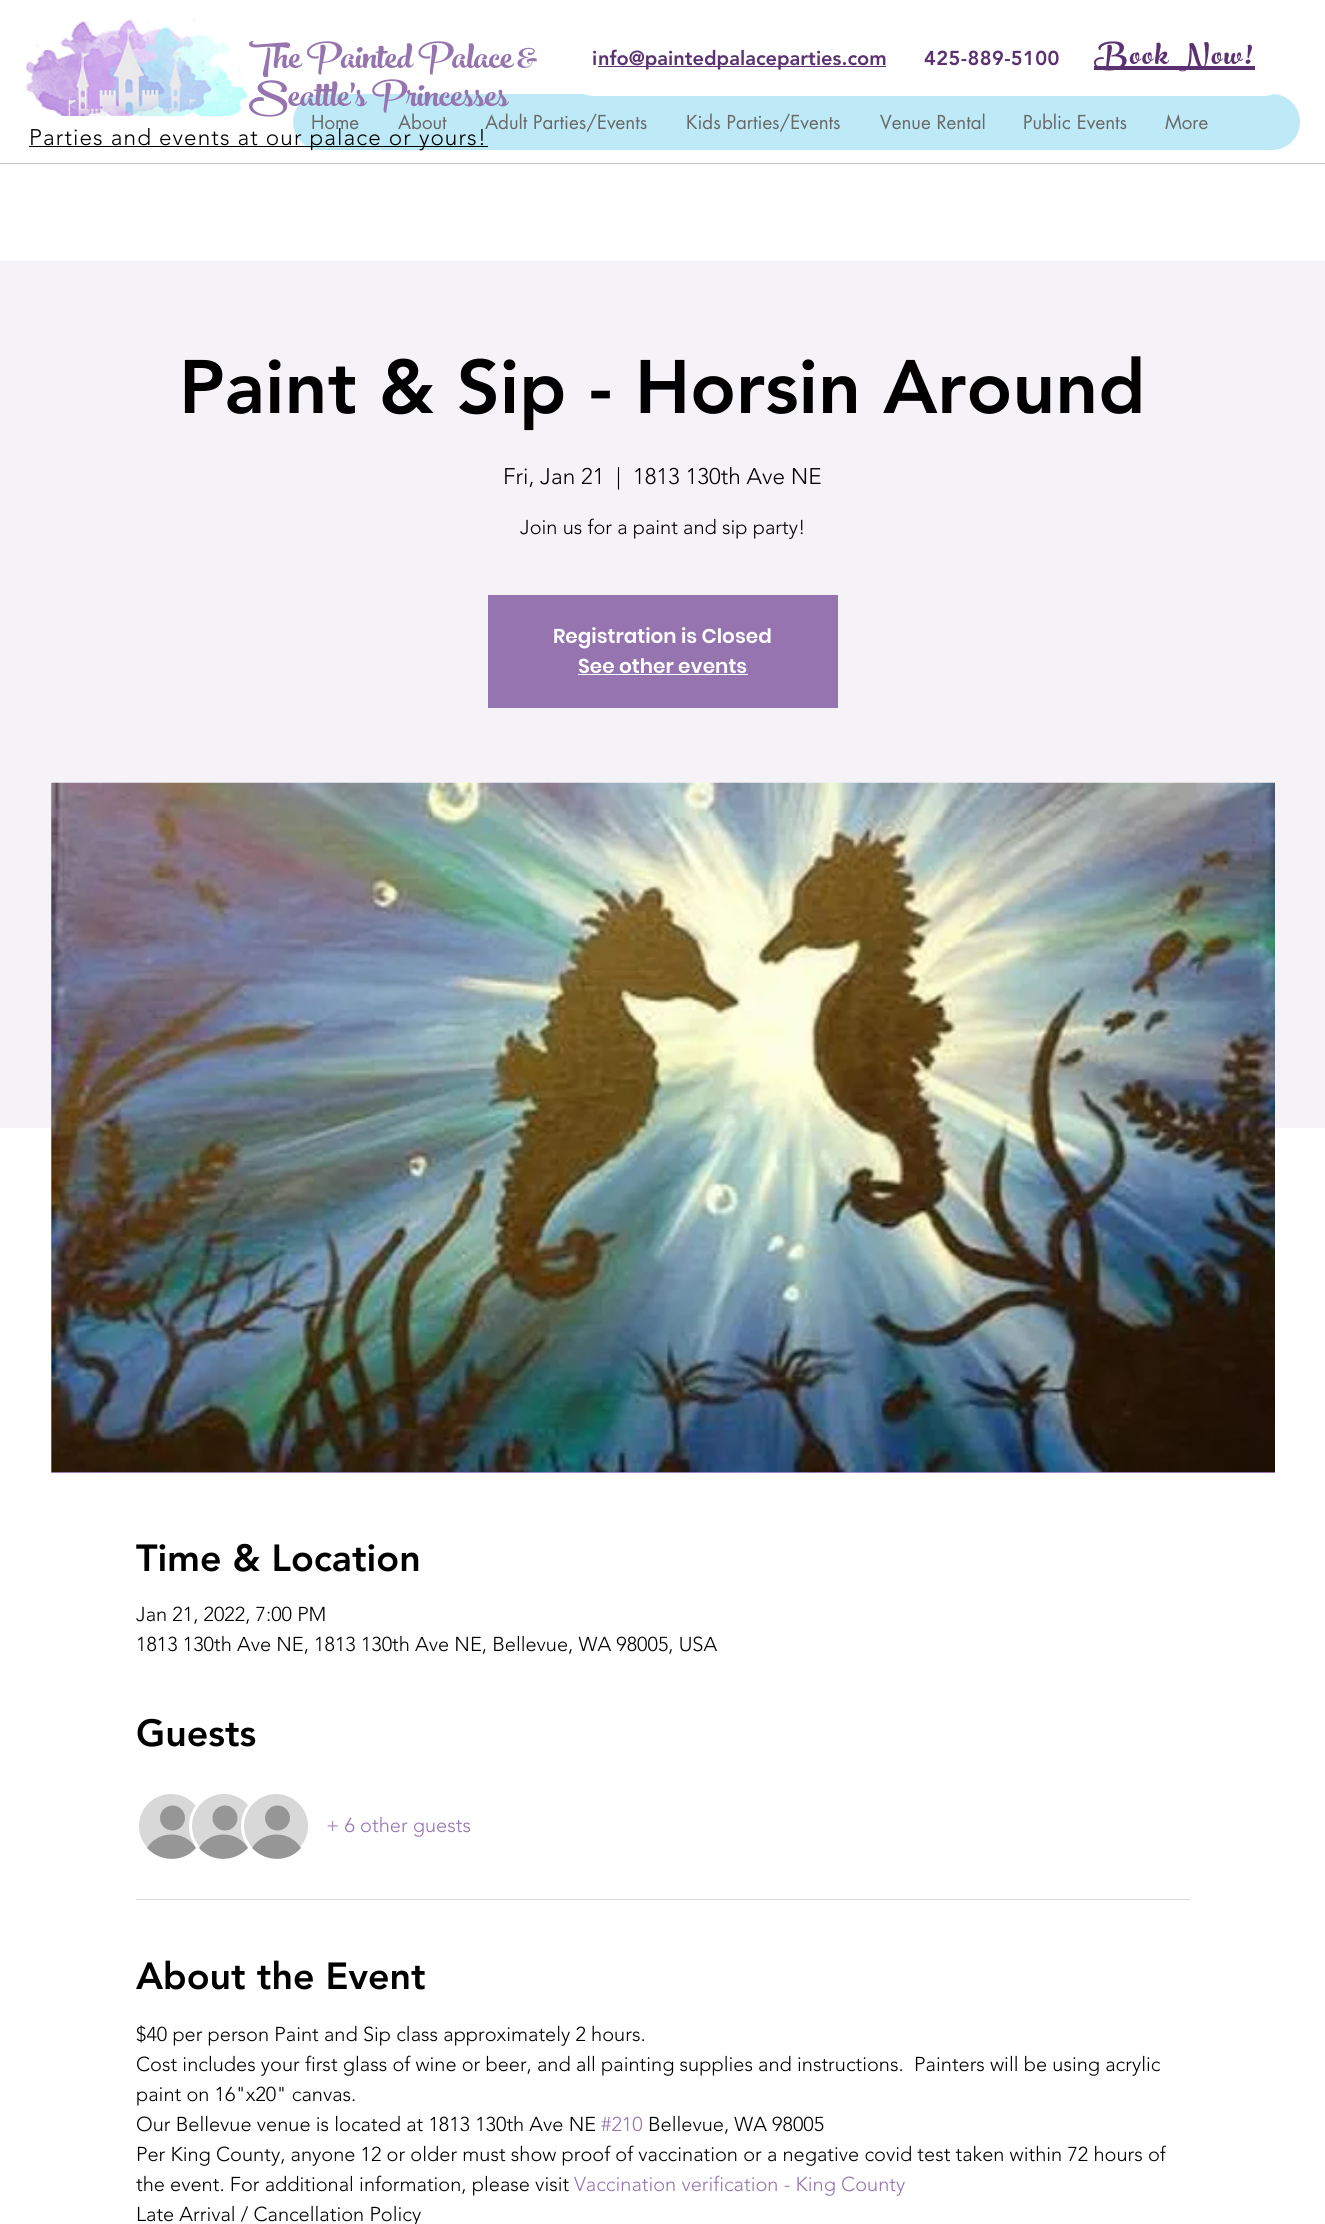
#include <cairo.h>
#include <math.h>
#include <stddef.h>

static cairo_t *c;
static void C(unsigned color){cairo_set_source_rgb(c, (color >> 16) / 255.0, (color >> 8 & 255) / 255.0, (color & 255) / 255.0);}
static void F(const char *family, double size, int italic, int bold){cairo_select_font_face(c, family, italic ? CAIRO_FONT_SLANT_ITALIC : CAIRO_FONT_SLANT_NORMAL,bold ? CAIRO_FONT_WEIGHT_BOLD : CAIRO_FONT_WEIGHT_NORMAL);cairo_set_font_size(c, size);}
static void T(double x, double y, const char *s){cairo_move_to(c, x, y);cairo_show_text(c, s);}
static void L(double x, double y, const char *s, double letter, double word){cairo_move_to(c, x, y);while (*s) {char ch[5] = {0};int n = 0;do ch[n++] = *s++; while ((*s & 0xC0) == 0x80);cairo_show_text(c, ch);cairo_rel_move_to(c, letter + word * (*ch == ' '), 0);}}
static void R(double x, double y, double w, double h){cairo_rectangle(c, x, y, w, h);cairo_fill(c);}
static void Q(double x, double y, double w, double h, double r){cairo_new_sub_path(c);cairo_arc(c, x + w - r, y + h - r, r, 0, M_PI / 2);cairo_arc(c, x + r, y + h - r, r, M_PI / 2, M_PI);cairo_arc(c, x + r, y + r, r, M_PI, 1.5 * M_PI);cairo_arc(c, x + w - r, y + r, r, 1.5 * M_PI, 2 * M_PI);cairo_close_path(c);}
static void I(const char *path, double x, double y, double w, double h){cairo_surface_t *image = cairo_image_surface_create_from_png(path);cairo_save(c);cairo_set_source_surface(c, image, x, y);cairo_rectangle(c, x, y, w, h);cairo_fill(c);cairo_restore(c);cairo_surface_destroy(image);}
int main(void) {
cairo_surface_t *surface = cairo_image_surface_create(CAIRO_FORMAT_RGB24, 1325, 2224);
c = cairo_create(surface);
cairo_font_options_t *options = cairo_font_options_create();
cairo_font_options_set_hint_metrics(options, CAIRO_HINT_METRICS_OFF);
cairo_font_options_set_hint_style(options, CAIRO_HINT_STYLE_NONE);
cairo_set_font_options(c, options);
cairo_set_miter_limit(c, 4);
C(0xffffff);
cairo_paint(c);
I("1.png",26,19,222,97);
F("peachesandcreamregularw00",52.5,0,0);
C(0x9574b0);
T(249,68,"The Painted Palace &");
C(0xbeeaf8);
Q(293,94,1007,56,28);
cairo_fill(c);
C(0x9574b0);
T(249,106,"Seattle's Princesses");
C(0x000000);
R(29,146,459,1);
F("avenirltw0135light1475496 Light",22.5,0,0);
L(29,145,"Parties and events at our palace or yours!",1.1,0);
C(0xffffff);
Q(558,10,742,86,38);
cairo_fill(c);
F("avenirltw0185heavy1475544 Black",20,0,0);
C(0x5b3172);
T(592,65,"i");
R(598,66,288,1);
T(598,65,"nfo@paintedpalaceparties.com");
L(924,65,"425-889-5100",.4,0);
R(1094,66,161,4);
F("peachesandcreamregularw00",45,0,0);
L(1094,64,"Book Now!",2.25,0);
F("futura",18.75,0,0);
C(0x696969);
T(311,129,"Home");
T(398,129,"About");
T(485,129,"Adult Parties/Events");
T(686,129,"Kids Parties/Events");
T(880,129,"Venue Rental");
T(1023,129,"Public Events");
T(1165,129,"More");
C(0xc7c7c7);
R(0,163,1325,1);
C(0xf5f2f8);
R(0,261,1325,867);
F("avenirltw0185heavy1475544 Black",75,0,0);
C(0x000000);
T(179,413,"Paint & Sip - Horsin Around");
F("avenirltw0135light1475496 Light",22.5,0,0);
T(503,484,"Fri, Jan 21");
T(616,484,"|");
T(633,484,"1813 130th Ave NE");
F("avenirltw0135light1475496 Light",20,0,0);
T(520,534,"Join us for a paint and sip party!");
C(0x9574b0);
R(488,595,350,113);
F("Poppins SemiBold",20,0,0);
C(0xffffff);
T(553,643,"Registration is Closed");
T(578,673,"See other events");
R(578,674,170,1);
C(0xc79beb);
R(51,783,1224,690);
I("2.png",51,782,1224,691);
F("avenirltw0185heavy1475544 Black",37.5,0,0);
C(0x000000);
T(136,1571,"Time & Location");
F("avenirltw0135light1475496 Light",20,0,0);
T(136,1621,"Jan 21, 2022, 7:00 PM");
T(136,1651,"1813 130th Ave NE, 1813 130th Ave NE, Bellevue, WA 98005, USA");
F("avenirltw0185heavy1475544 Black",37.5,0,0);
T(136,1746,"Guests");
C(0xd8d8d8);
cairo_new_path(c);
cairo_arc(c,171,1826,33.5,0,2 * M_PI);
cairo_fill_preserve(c);
C(0xffffff);
cairo_set_line_width(c,3);
cairo_stroke(c);
C(0x969696);
cairo_arc(c,172.5,1818,12.5,0,2 * M_PI);
cairo_fill(c);
cairo_new_path(c);
cairo_move_to(c,196,1848);
cairo_curve_to(c,183,1863,160,1862,147,1848);
cairo_curve_to(c,158,1830,185,1830,196,1848);
cairo_close_path(c);
cairo_fill(c);
C(0xd8d8d8);
cairo_arc(c,224,1826,33.5,0,2 * M_PI);
cairo_fill_preserve(c);
C(0xffffff);
cairo_stroke(c);
C(0x969696);
cairo_arc(c,225,1818,12.5,0,2 * M_PI);
cairo_fill(c);
cairo_new_path(c);
cairo_move_to(c,248,1848);
cairo_curve_to(c,235,1862,212,1863,199,1848);
cairo_curve_to(c,210,1830,237,1830,248,1848);
cairo_close_path(c);
cairo_fill(c);
C(0xd8d8d8);
cairo_arc(c,276,1826,33.5,0,2 * M_PI);
cairo_fill_preserve(c);
C(0xffffff);
cairo_stroke(c);
C(0x969696);
cairo_arc(c,277.5,1818,12.5,0,2 * M_PI);
cairo_fill(c);
cairo_new_path(c);
cairo_move_to(c,301,1848);
cairo_curve_to(c,288,1863,265,1862,252,1848);
cairo_curve_to(c,263,1830,290,1830,301,1848);
cairo_close_path(c);
cairo_fill(c);
F("avenirltw0135light1475496 Light",20,0,0);
C(0x9574b0);
T(326,1832,"+ 6 other guests");
C(0xd9d9d9);
R(136,1899,1054,1);
F("avenirltw0185heavy1475544 Black",37.5,0,0);
C(0x000000);
T(136,1989,"About the Event");
F("avenirltw0135light1475496 Light",20,0,0);
T(136,2041,"$40 per person Paint and Sip class approximately 2 hours.");
T(136,2071,"Cost includes your first glass of wine or beer, and all painting supplies and instructions.  Painters will be using acrylic");
T(136,2101,"paint on 16\"x20\" canvas.");
T(136,2131,"Our Bellevue venue is located at 1813 130th Ave NE");
C(0x9574b0);
T(601,2131,"#210");
C(0x000000);
T(648,2131,"Bellevue, WA 98005");
T(136,2161,"Per King County, anyone 12 or older must show proof of vaccination or a negative covid test taken within 72 hours of");
T(136,2191,"the event. For additional information, please visit");
C(0x9574b0);
T(574,2191,"Vaccination verification - King County");
C(0x000000);
T(136,2221,"Late Arrival / Cancellation Policy");
cairo_surface_write_to_png(surface, "o.png");
cairo_font_options_destroy(options);
cairo_destroy(c);
cairo_surface_destroy(surface);
return 0;
}
